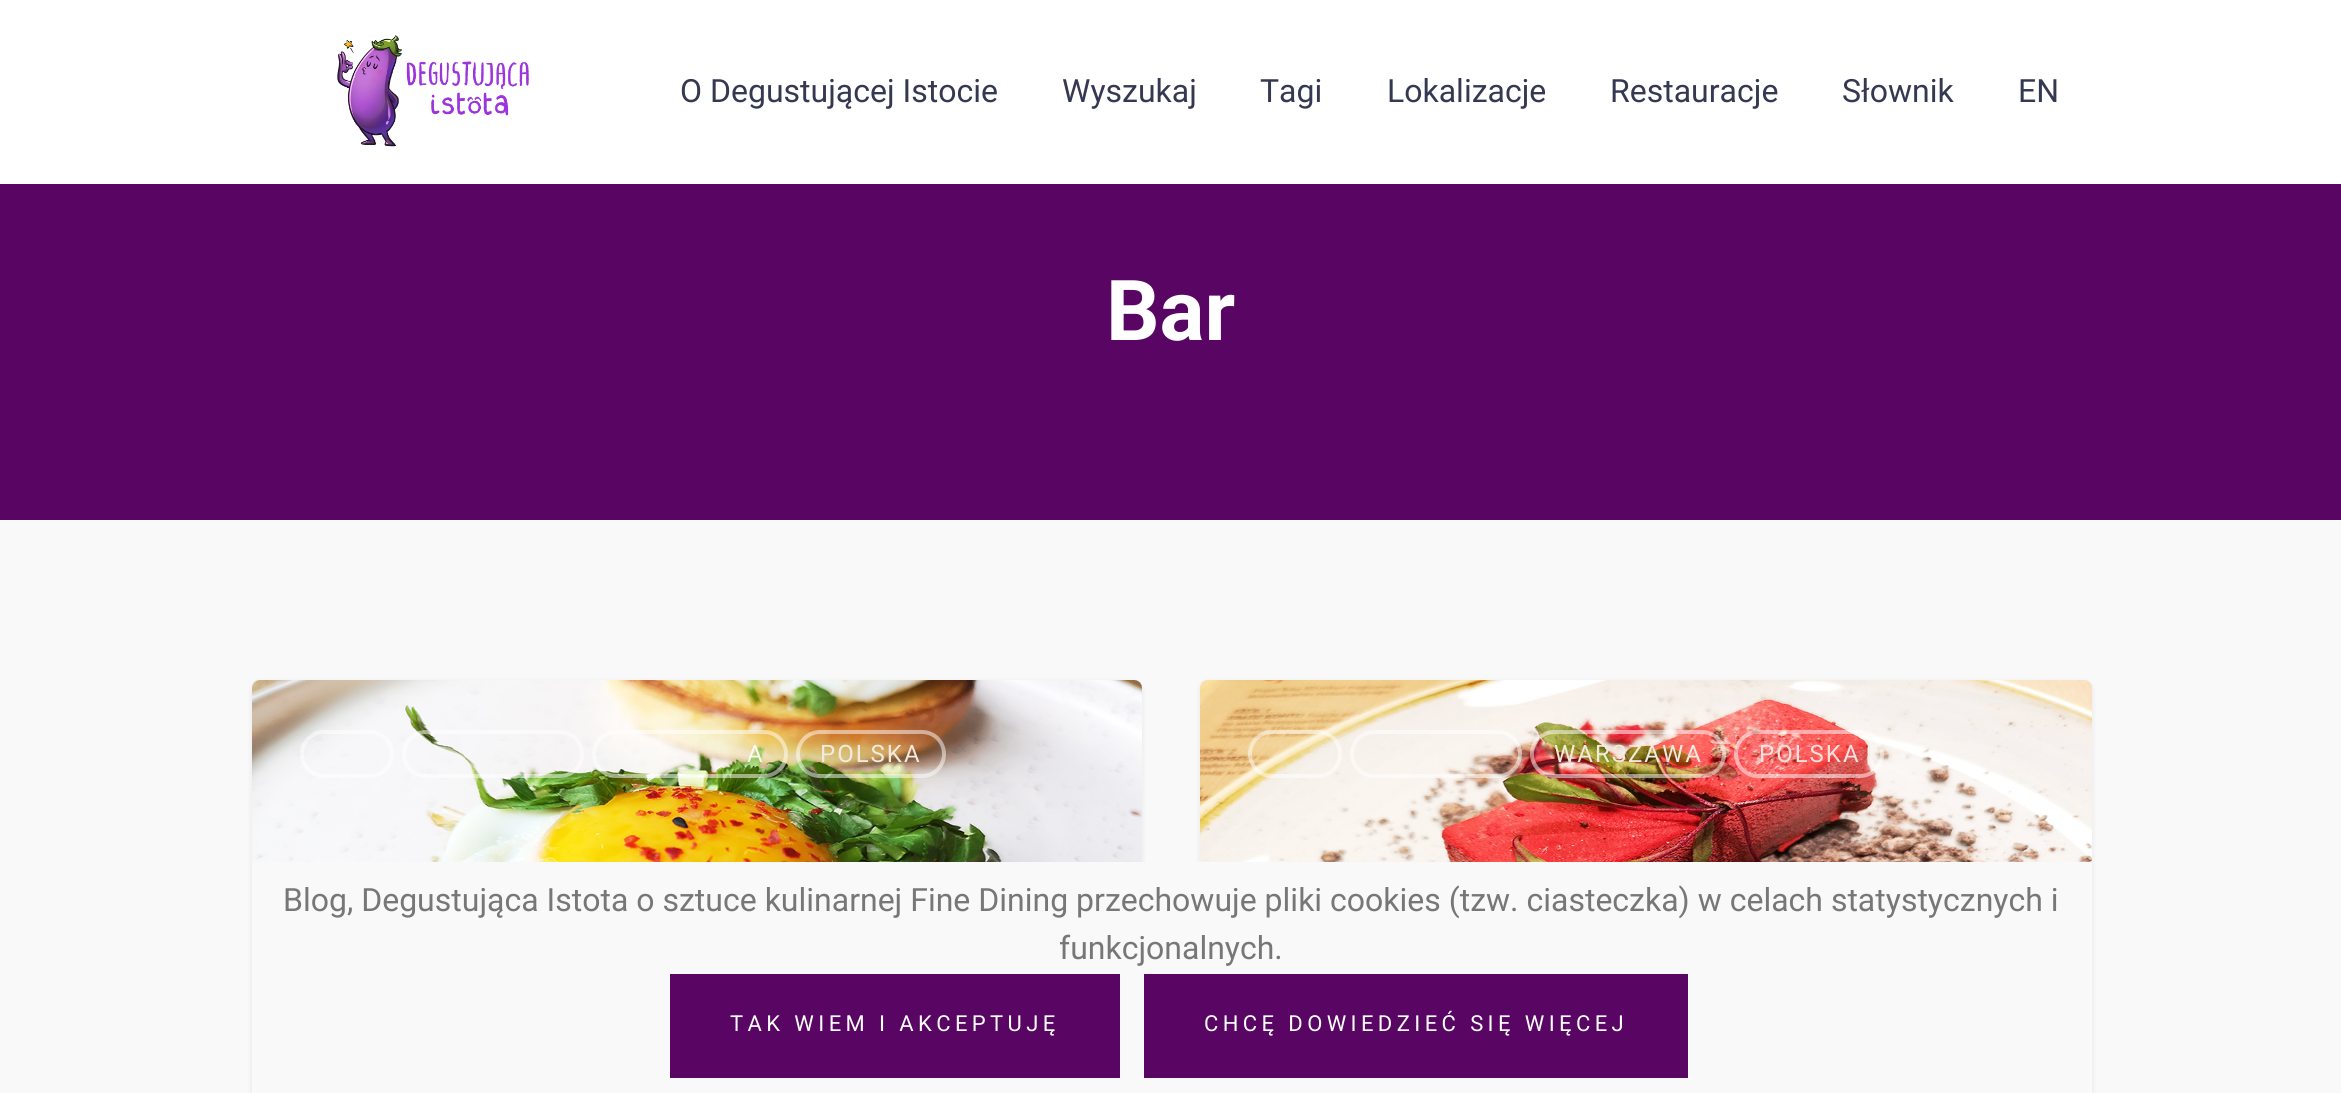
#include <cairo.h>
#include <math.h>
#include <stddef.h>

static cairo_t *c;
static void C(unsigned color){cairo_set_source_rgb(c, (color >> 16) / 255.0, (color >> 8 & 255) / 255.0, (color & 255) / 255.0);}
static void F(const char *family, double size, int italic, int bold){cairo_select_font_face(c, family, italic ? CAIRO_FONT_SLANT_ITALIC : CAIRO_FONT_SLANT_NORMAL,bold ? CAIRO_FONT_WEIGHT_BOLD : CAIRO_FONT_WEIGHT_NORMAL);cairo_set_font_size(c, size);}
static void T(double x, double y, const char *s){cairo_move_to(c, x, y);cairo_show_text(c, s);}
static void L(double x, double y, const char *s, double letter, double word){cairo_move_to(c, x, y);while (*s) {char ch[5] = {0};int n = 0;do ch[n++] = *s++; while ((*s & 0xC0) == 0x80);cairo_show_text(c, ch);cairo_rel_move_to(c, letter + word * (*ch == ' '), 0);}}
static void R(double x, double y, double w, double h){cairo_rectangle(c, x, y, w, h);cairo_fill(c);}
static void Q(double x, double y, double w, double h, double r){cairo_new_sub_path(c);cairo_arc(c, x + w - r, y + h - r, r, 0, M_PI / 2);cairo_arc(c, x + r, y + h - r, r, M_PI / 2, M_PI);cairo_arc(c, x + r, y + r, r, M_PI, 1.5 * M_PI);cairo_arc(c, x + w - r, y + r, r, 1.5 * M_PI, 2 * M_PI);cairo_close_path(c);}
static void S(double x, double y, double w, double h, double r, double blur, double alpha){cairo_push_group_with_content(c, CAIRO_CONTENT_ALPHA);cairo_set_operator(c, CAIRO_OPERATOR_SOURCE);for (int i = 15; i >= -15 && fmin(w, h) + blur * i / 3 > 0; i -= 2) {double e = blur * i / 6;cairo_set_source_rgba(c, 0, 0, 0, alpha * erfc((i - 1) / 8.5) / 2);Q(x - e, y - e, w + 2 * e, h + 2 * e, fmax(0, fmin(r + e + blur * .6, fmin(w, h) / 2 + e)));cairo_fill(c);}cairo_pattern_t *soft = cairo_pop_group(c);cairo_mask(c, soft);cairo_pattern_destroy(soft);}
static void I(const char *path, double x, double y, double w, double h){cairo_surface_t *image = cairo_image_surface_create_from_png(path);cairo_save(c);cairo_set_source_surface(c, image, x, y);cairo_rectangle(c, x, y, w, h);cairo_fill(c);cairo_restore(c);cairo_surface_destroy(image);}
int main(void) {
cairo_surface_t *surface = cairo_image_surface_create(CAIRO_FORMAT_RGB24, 2341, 1093);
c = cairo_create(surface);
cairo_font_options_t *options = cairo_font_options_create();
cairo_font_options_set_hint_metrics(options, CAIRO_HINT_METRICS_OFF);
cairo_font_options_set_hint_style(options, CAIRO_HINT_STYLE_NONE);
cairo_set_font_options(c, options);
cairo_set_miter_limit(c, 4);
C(0xf9f9f9);
cairo_paint(c);
C(0xffffff);
R(0,0,2341,184);
I("1.png",337,35,192,112);
F("Roboto",32,0,0);
C(0x343851);
T(680,102,"O Degustującej Istocie");
T(1062,102,"Wyszukaj");
T(1260,102,"Tagi");
T(1387,102,"Lokalizacje");
T(1610,102,"Restauracje");
T(1842,102,"Słownik");
T(2018,102,"EN");
C(0x580563);
R(0,184,2341,336);
F("Roboto",84,0,1);
C(0xffffff);
T(1106,340,"Bar");
C(0x000000);
S(252,682,890,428,8,3,.08);
I("2.png",252,680,890,182);
Q(302,732,90,44,22);
cairo_set_source_rgba(c,1,1,1,0.5);
cairo_set_line_width(c,4);
cairo_stroke(c);
Q(404,732,178,44,22);
cairo_stroke(c);
Q(594,732,192,44,22);
cairo_stroke(c);
F("Roboto",24,0,0);
C(0xfcfbf6);
L(747,762,"A",2,0);
Q(798,732,146,44,22);
cairo_set_source_rgba(c,1,1,1,0.5);
cairo_stroke(c);
C(0xf2eade);
L(820,762,"POLSKA",2,0);
C(0x000000);
S(1200,682,892,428,8,3,.08);
I("3.png",1200,680,892,182);
Q(1250,732,90,44,22);
cairo_set_source_rgba(c,1,1,1,0.5);
cairo_stroke(c);
Q(1352,732,168,44,22);
cairo_stroke(c);
Q(1532,732,192,44,22);
cairo_stroke(c);
C(0xf2eade);
L(1554,762,"WARSZAWA",2,0);
Q(1736,732,146,44,22);
cairo_set_source_rgba(c,1,1,1,0.5);
cairo_stroke(c);
C(0xfce0e0);
L(1759,762,"POLSKA",2,0);
C(0xf9f9f9);
R(252,862,1840,231);
F("Roboto",32,0,0);
C(0x777777);
T(283,911,"Blog, Degustująca Istota o sztuce kulinarnej Fine Dining przechowuje pliki cookies (tzw. ciasteczka) w celach statystycznych i");
T(1059,959,"funkcjonalnych.");
C(0x580563);
R(670,974,450,104);
F("Roboto",22,0,0);
C(0xffffff);
L(730,1031,"TAK WIEM I AKCEPTUJĘ",4.4,0);
C(0x580563);
R(1144,974,544,104);
C(0xffffff);
L(1204,1031,"CHCĘ DOWIEDZIEĆ SIĘ WIĘCEJ",4.4,0);
cairo_surface_write_to_png(surface, "o.png");
cairo_font_options_destroy(options);
cairo_destroy(c);
cairo_surface_destroy(surface);
return 0;
}
